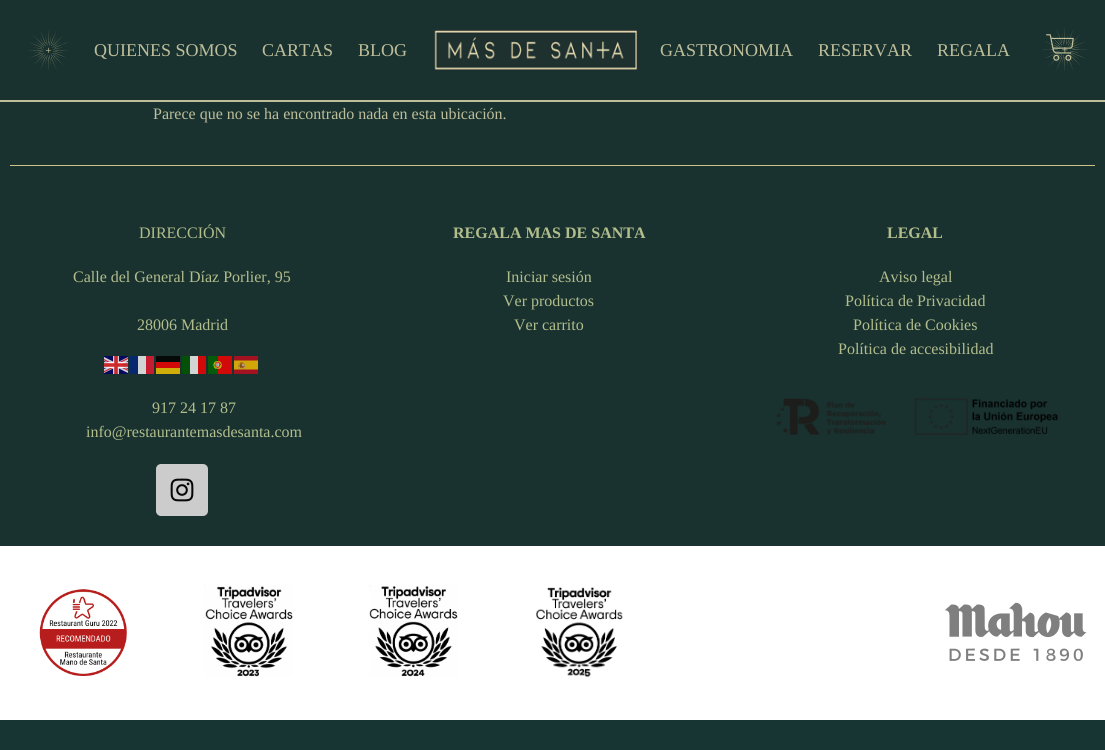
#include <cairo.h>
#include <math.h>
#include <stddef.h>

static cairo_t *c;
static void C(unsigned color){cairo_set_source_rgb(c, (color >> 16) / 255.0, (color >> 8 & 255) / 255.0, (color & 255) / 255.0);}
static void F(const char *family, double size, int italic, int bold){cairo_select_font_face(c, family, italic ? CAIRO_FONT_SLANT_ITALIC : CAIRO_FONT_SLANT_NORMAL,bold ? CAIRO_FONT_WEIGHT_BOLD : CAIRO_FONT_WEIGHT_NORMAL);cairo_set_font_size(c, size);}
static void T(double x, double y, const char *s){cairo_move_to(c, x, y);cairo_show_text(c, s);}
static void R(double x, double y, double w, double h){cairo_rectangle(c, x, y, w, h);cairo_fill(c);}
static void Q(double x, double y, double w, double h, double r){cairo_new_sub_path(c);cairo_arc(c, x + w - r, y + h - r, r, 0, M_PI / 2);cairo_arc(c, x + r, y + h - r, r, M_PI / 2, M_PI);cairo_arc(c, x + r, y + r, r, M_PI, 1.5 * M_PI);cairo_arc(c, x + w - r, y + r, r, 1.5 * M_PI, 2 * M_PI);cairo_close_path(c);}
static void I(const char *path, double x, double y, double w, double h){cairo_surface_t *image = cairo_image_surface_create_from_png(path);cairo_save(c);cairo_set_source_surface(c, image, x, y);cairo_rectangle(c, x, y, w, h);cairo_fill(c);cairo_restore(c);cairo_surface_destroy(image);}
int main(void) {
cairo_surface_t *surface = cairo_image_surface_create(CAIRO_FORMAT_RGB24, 1105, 750);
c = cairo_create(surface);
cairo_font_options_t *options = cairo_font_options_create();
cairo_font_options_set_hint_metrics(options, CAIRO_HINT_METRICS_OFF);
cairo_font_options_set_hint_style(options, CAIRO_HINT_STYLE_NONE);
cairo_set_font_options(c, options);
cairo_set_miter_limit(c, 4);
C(0x19322f);
cairo_paint(c);
C(0xbebe9a);
R(0,100,1105,2);
I("1.png",29,30,39,40);
F("Liberation Serif",18,0,0);
T(94,56,"QUIENES SOMOS");
T(262,56,"CARTAS");
T(358,56,"BLOG");
I("2.png",433,30,206,40);
I("4.png",1046,34,28,27);
I("3.png",1043,28,44,43);
T(660,56,"GASTRONOMIA");
T(818,56,"RESERVAR");
T(937,56,"REGALA");
F("Liberation Serif",16,0,0);
T(153,119,"Parece que no se ha encontrado nada en esta ubicación.");
C(0x173533);
R(0,720,1105,30);
C(0xcac489);
R(10,165,1085,1);
C(0xb2bd8c);
T(139,238,"DIRECCIÓN");
T(73,282,"Calle del General Díaz Porlier, 95");
T(137,330,"28006 Madrid");
I("5.png",104,356,24,18);
C(0x05286f);
R(130,356,8,18);
C(0xd1d6d5);
R(138,356,8,18);
C(0xc71d30);
R(146,356,8,18);
C(0x050a09);
R(156,356,24,6);
C(0x055009);
R(182,356,8,18);
C(0xd1d6d5);
R(190,356,8,18);
C(0xcf0a09);
R(198,356,8,18);
I("6.png",208,356,24,18);
I("7.png",234,356,24,18);
C(0xd10a09);
R(156,362,24,6);
C(0xd1ad09);
R(156,368,24,6);
C(0xb2bd8c);
T(152,413,"917 24 17 87");
T(86,437,"info@restaurantemasdesanta.com");
C(0xcccccc);
Q(156,464,52,52,5);
cairo_fill(c);
I("8.png",170,478,24,24);
F("Liberation Serif",16,0,1);
C(0xb2bd8c);
T(453,238,"REGALA MAS DE SANTA");
F("Liberation Serif",16,0,0);
T(506,282,"Iniciar sesión");
T(503,306,"Ver productos");
T(514,330,"Ver carrito");
F("Liberation Serif",16,0,1);
T(887,238,"LEGAL");
F("Liberation Serif",16,0,0);
T(879,282,"Aviso legal");
T(845,306,"Política de Privacidad");
T(853,330,"Política de Cookies");
T(838,354,"Política de accesibilidad");
I("9.png",776,398,282,37);
C(0xffffff);
R(0,546,1105,174);
I("10.png",39,589,88,87);
I("11.png",204,585,89,92);
I("12.png",369,585,89,92);
I("13.png",536,587,87,91);
I("14.png",945,602,142,59);
cairo_surface_write_to_png(surface, "o.png");
cairo_font_options_destroy(options);
cairo_destroy(c);
cairo_surface_destroy(surface);
return 0;
}
